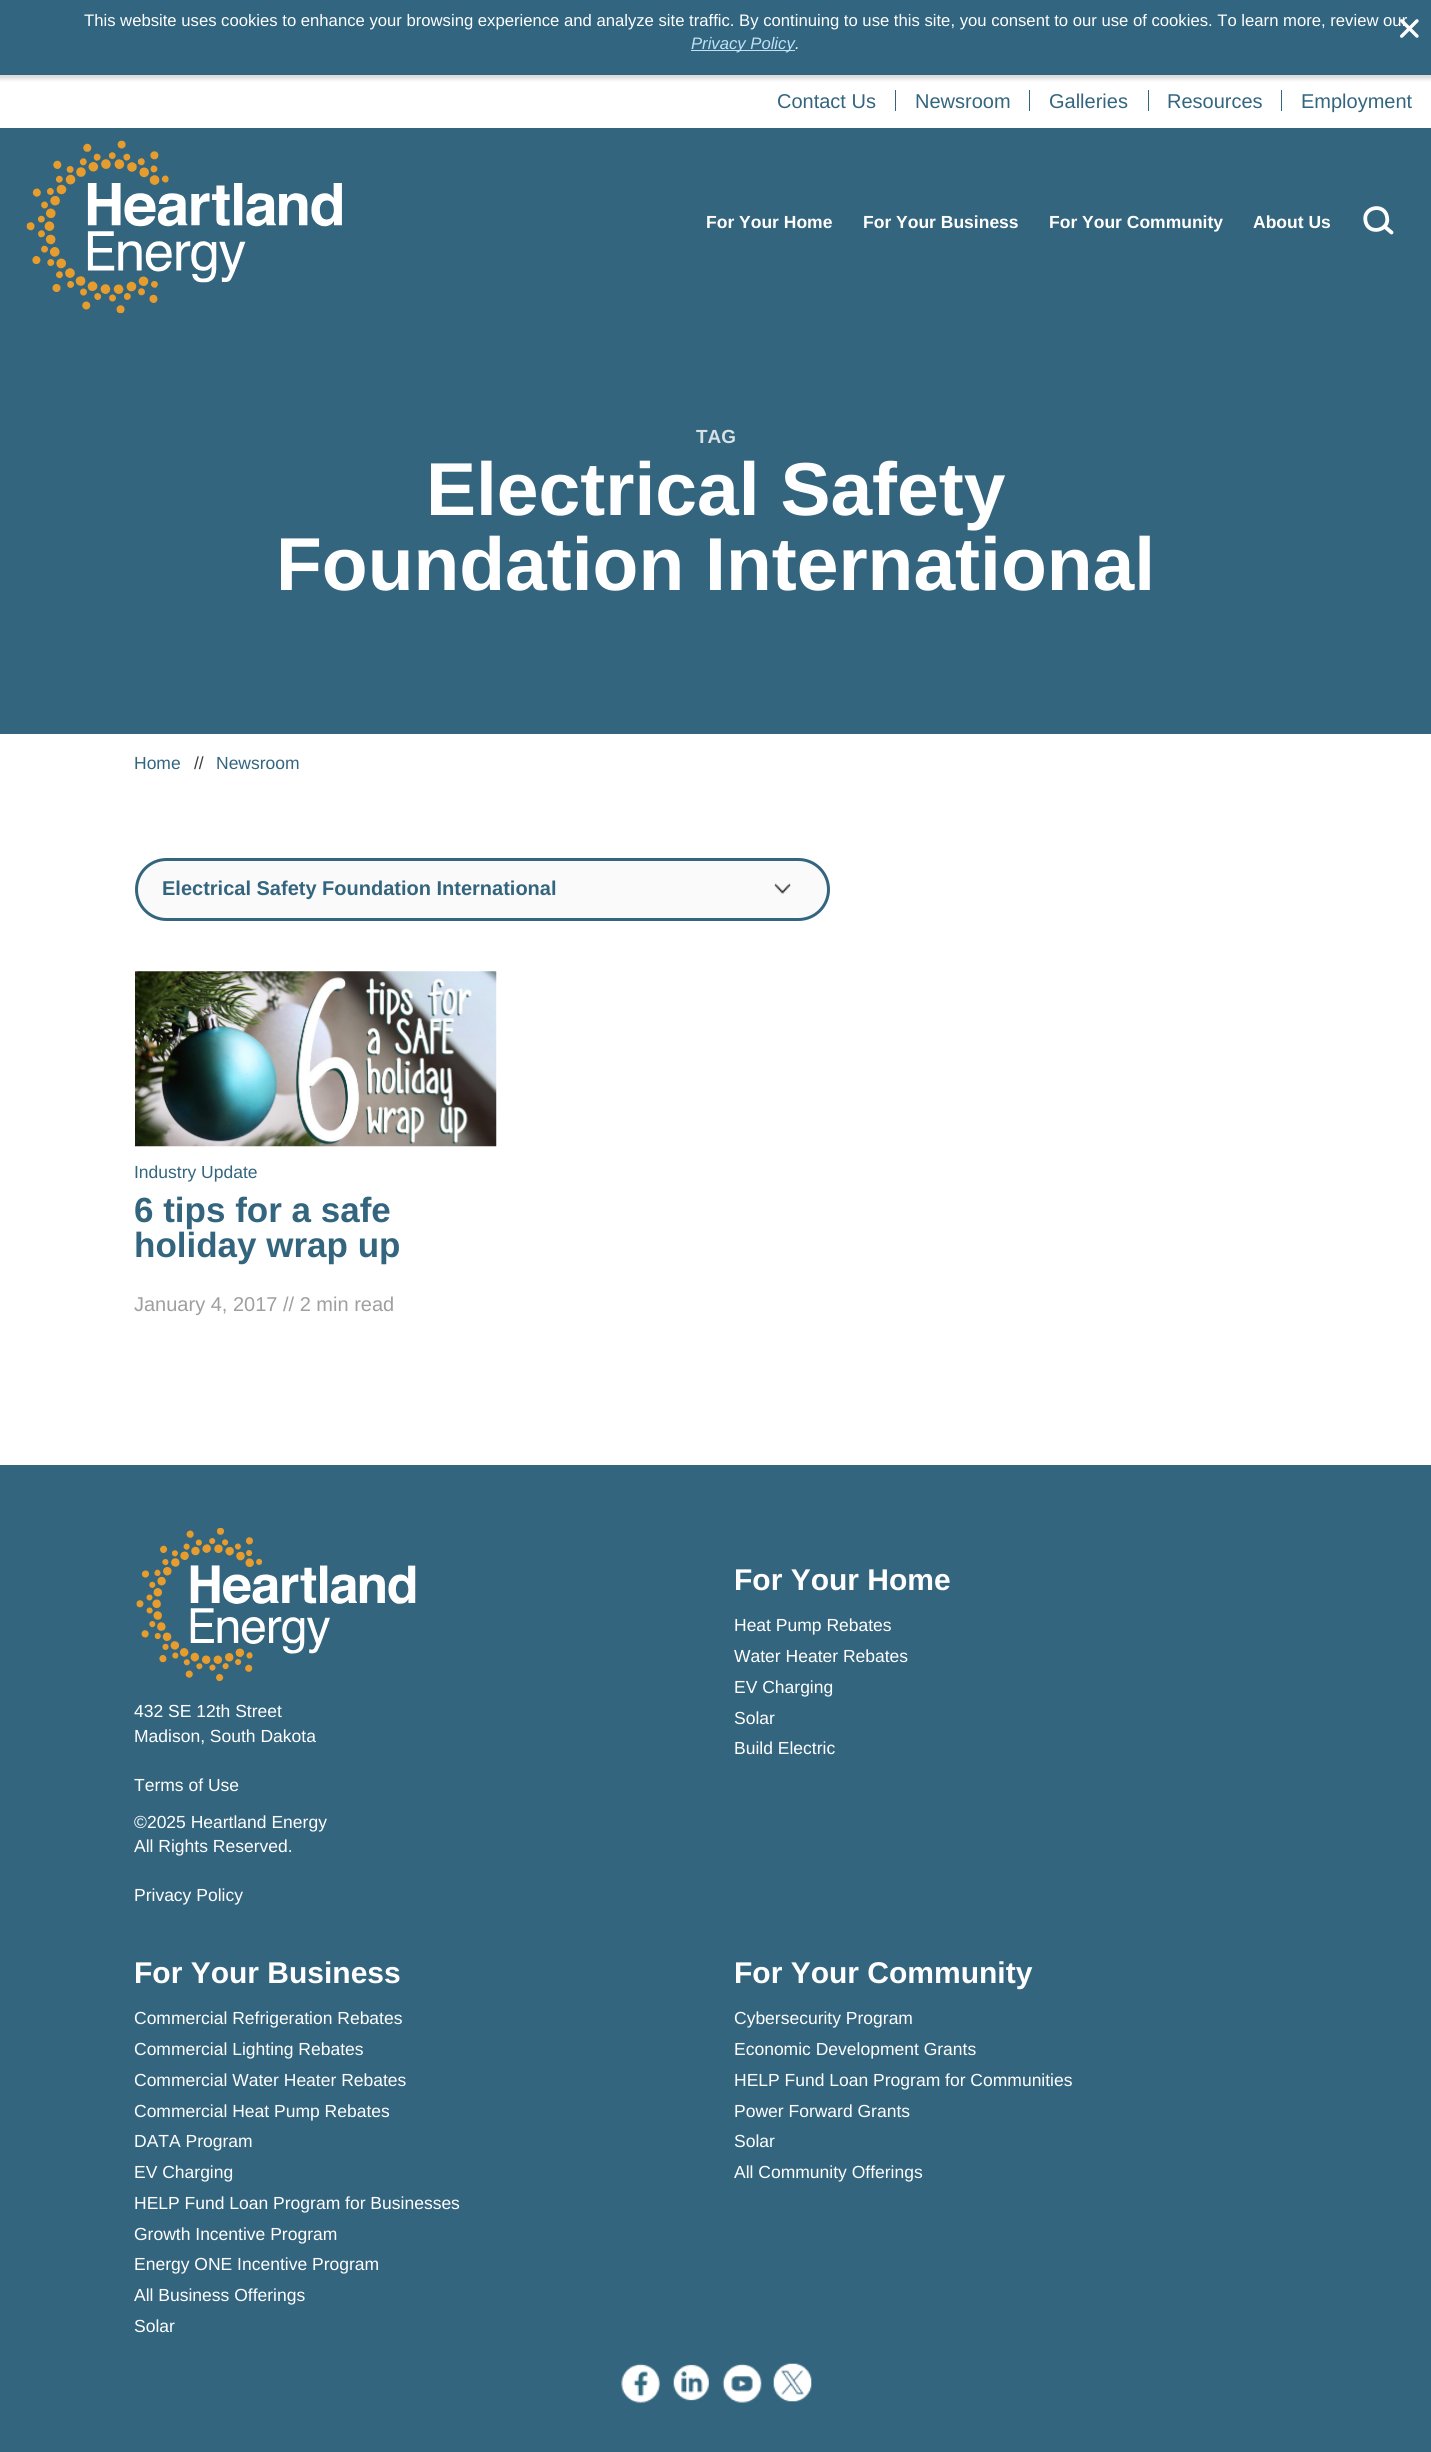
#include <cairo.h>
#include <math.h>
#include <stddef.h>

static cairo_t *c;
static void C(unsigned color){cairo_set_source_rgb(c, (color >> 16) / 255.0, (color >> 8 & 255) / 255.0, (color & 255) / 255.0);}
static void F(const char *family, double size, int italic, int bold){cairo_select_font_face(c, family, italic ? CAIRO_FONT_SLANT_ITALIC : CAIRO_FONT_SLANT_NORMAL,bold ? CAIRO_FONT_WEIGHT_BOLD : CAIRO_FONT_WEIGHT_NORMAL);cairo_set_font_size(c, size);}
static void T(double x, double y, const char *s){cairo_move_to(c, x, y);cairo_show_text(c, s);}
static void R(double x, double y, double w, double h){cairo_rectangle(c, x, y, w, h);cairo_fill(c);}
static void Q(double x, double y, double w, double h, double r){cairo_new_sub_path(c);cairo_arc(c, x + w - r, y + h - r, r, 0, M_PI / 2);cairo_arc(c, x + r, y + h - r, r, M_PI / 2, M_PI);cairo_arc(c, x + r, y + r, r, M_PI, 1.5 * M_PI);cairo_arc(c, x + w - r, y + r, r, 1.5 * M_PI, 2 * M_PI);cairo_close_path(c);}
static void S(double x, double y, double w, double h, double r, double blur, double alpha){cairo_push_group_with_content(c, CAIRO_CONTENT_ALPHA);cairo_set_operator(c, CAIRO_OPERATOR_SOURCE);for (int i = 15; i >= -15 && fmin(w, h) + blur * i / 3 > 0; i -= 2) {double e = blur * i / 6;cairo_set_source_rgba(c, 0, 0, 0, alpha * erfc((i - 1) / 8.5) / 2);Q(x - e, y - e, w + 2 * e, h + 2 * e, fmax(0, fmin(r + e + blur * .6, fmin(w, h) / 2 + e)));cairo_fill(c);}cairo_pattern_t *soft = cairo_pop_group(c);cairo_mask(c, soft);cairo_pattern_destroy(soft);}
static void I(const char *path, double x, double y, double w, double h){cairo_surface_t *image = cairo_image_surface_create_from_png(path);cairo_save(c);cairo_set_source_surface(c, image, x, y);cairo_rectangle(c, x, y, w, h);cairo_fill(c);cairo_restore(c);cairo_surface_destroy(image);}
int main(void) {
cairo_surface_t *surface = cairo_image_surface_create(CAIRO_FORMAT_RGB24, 1431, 2452);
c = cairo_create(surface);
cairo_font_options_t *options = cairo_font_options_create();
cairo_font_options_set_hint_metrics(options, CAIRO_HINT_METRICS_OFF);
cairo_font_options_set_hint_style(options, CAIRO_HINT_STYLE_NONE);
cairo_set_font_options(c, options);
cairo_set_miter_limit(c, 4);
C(0xffffff);
cairo_paint(c);
C(0x000000);
S(-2,-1,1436,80,0,2,.15);
C(0x316580);
R(0,0,1431,75);
F("Liberation Sans",16.67,0,0);
C(0xffffff);
T(84,26,"This website uses cookies to enhance your browsing experience and analyze site traffic. By continuing to use this site, you consent to our use of cookies. To learn more, review our");
C(0xc2e0f4);
R(691,50,104,1);
F("Liberation Sans",16.67,1,0);
T(691,49,"Privacy Policy");
C(0xffffff);
T(795,49,".");
I("1.png",1400,19,19,19);
F("Liberation Sans",20,0,0);
C(0x34657f);
T(777,108,"Contact Us");
R(895,90,1,21);
T(915,108,"Newsroom");
R(1029,90,1,21);
T(1049,108,"Galleries");
R(1148,90,1,21);
T(1167,108,"Resources");
R(1281,90,1,21);
T(1301,108,"Employment");
R(0,128,1431,606);
I("2.png",26,140,316,174);
F("Liberation Sans",17.5,0,1);
C(0xffffff);
T(706,228,"For Your Home");
T(863,228,"For Your Business");
T(1049,228,"For Your Community");
T(1253,228,"About Us");
cairo_new_path(c);
cairo_move_to(c,1387,217);
cairo_curve_to(c,1390,231,1368,235.5,1365.5,221);
cairo_curve_to(c,1362.5,207,1384.5,202.5,1387,217);
cairo_close_path(c);
cairo_set_line_width(c,3.8);
cairo_stroke(c);
cairo_new_path(c);
cairo_move_to(c,1384.5,226.5);
cairo_line_to(c,1391.5,232.5);
cairo_set_line_cap(c,CAIRO_LINE_CAP_ROUND);
cairo_stroke(c);
F("Liberation Sans",19,0,1);
C(0xd6e0e5);
T(696,443,"TAG");
F("Liberation Sans",75,0,1);
C(0xffffff);
T(426,515,"Electrical Safety");
T(276,590,"Foundation International");
F("Liberation Sans",17.5,0,0);
C(0x34657f);
T(134,769,"Home");
C(0x3e3e3e);
T(194,769,"//");
C(0x34657f);
T(216,769,"Newsroom");
C(0xfafafa);
Q(135,858,695,63,31.5);
cairo_fill(c);
I("3.png",774,883,17,11);
Q(136.5,859.5,692,60,30);
C(0x34657f);
cairo_set_line_width(c,3);
cairo_set_line_cap(c,CAIRO_LINE_CAP_BUTT);
cairo_stroke(c);
F("Liberation Sans",20,0,1);
T(162,895,"Electrical Safety Foundation International");
I("4.png",135,971,362,176);
F("Liberation Sans",17.5,0,0);
T(134,1178,"Industry Update");
F("Liberation Sans",35,0,1);
T(134,1222,"6 tips for a safe");
T(134,1257,"holiday wrap up");
F("Liberation Sans",20,0,0);
C(0x9f9f9f);
T(134,1311,"January 4, 2017 // 2 min read");
C(0x34657f);
R(0,1465,1431,987);
F("Liberation Sans",30,0,1);
C(0xffffff);
T(734,1590,"For Your Home");
F("Liberation Sans",17.5,0,0);
T(734,1631,"Heat Pump Rebates");
T(734,1662,"Water Heater Rebates");
T(734,1693,"EV Charging");
T(734,1724,"Solar");
T(734,1754,"Build Electric");
I("5.png",136,1528,280,153);
T(134,1717,"432 SE 12th Street");
T(134,1742,"Madison, South Dakota");
T(134,1791,"Terms of Use");
T(134,1828,"©2025 Heartland Energy");
T(134,1852,"All Rights Reserved.");
T(134,1901,"Privacy Policy");
F("Liberation Sans",30,0,1);
T(134,1983,"For Your Business");
F("Liberation Sans",17.5,0,0);
T(134,2024,"Commercial Refrigeration Rebates");
T(134,2055,"Commercial Lighting Rebates");
T(134,2086,"Commercial Water Heater Rebates");
T(134,2117,"Commercial Heat Pump Rebates");
T(134,2147,"DATA Program");
T(134,2178,"EV Charging");
T(134,2209,"HELP Fund Loan Program for Businesses");
T(134,2240,"Growth Incentive Program");
T(134,2270,"Energy ONE Incentive Program");
T(134,2301,"All Business Offerings");
T(134,2332,"Solar");
F("Liberation Sans",30,0,1);
T(734,1983,"For Your Community");
F("Liberation Sans",17.5,0,0);
T(734,2024,"Cybersecurity Program");
T(734,2055,"Economic Development Grants");
T(734,2086,"HELP Fund Loan Program for Communities");
T(734,2117,"Power Forward Grants");
T(734,2147,"Solar");
T(734,2178,"All Community Offerings");
I("6.png",621,2363,39,40);
I("7.png",673,2364,36,37);
I("8.png",722,2363,40,40);
I("9.png",773,2363,39,39);
cairo_surface_write_to_png(surface, "o.png");
cairo_font_options_destroy(options);
cairo_destroy(c);
cairo_surface_destroy(surface);
return 0;
}
